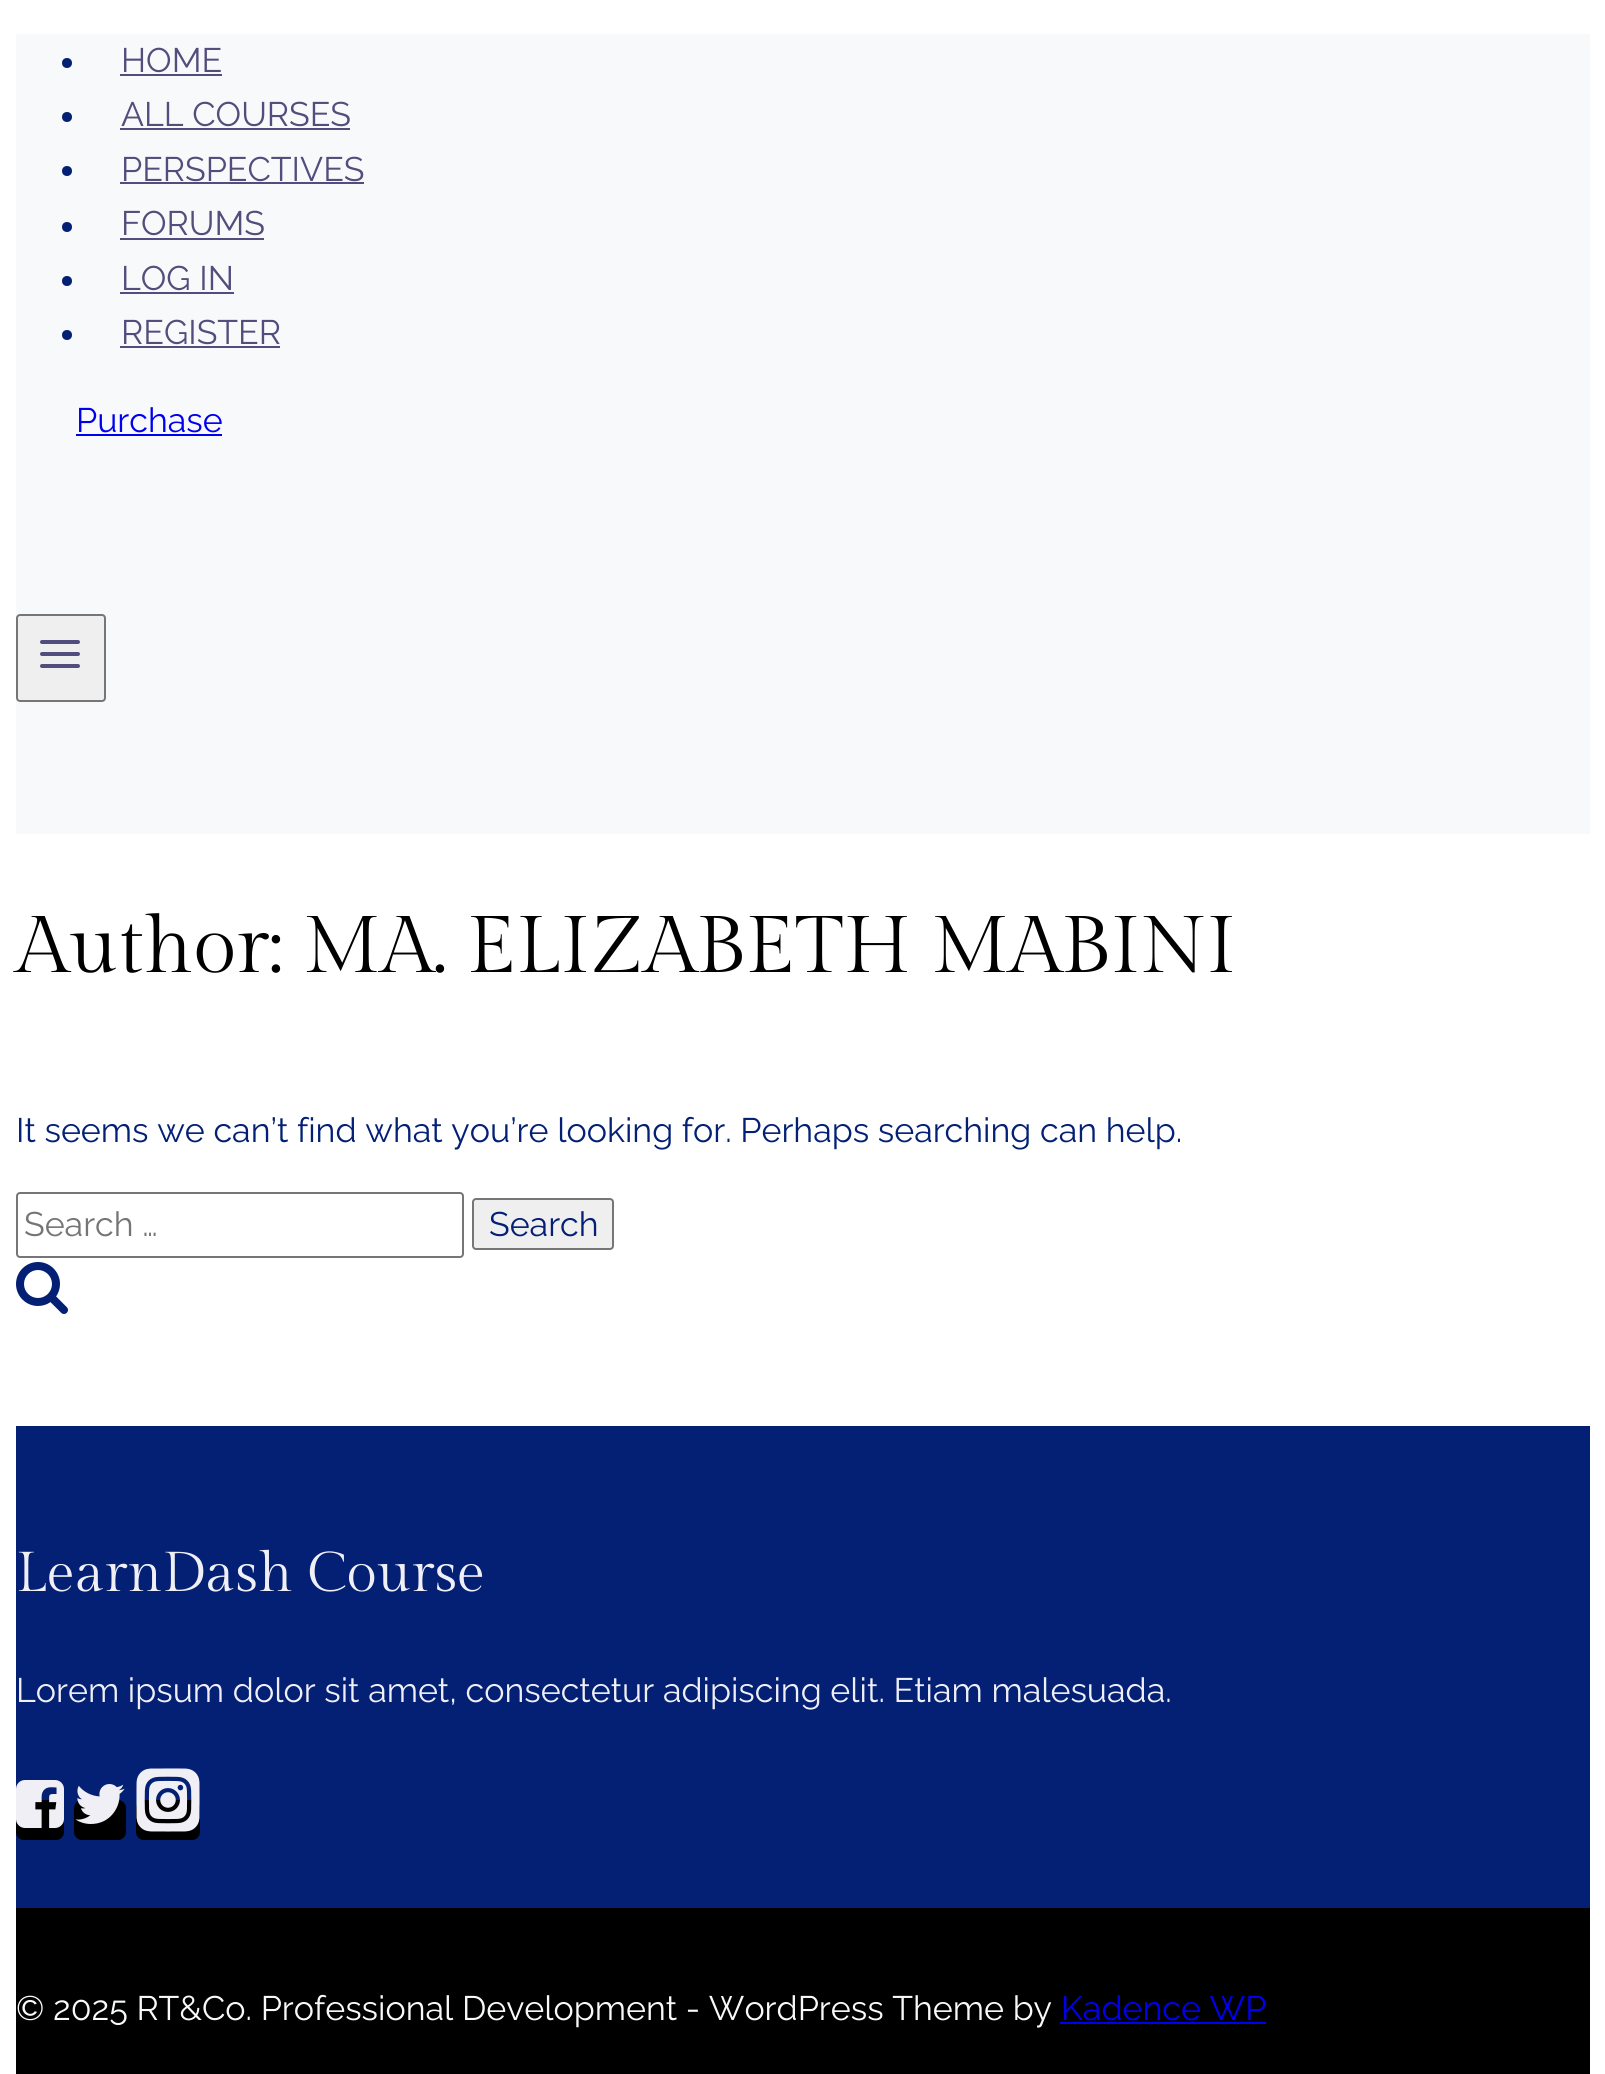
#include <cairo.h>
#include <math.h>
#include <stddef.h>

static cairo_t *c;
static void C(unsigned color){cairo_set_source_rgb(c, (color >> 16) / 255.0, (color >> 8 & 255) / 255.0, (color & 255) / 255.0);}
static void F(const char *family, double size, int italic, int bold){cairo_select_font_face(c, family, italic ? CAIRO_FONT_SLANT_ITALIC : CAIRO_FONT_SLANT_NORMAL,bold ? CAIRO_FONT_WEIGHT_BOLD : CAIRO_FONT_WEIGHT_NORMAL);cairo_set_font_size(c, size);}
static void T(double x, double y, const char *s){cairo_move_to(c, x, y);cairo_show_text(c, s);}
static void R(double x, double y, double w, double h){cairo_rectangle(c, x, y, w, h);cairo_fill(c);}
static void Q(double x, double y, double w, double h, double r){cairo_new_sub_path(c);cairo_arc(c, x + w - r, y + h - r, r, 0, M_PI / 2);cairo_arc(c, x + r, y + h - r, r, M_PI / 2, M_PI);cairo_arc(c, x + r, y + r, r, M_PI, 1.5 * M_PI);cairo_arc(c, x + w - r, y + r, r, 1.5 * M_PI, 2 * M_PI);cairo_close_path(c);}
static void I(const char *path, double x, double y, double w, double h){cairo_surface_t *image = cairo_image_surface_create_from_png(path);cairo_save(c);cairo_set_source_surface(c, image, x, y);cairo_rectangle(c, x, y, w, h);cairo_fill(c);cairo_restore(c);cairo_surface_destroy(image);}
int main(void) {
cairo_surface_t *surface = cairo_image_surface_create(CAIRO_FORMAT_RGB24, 1605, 2074);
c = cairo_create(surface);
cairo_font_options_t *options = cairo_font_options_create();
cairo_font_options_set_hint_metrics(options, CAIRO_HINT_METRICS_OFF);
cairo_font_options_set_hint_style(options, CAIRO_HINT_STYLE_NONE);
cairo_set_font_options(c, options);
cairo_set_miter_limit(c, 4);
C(0xffffff);
cairo_paint(c);
C(0xf8f9fa);
R(16,34,1574,800);
C(0x032075);
cairo_arc(c,67,63,5,0,2 * M_PI);
cairo_fill(c);
F("Raleway",34,0,0);
C(0x514d7c);
T(121,72,"HOME");
R(120,74,102,2);
C(0x032075);
cairo_new_path(c);
cairo_arc(c,67,117,5,0,2 * M_PI);
cairo_fill(c);
C(0x514d7c);
T(121,126,"ALL COURSES");
R(120,128,230,2);
C(0x032075);
cairo_new_path(c);
cairo_arc(c,67,171,5,0,2 * M_PI);
cairo_fill(c);
C(0x514d7c);
T(121,181,"PERSPECTIVES");
R(120,182,244,2);
C(0x032075);
cairo_new_path(c);
cairo_arc(c,67,227,5,0,2 * M_PI);
cairo_fill(c);
C(0x514d7c);
T(121,235,"FORUMS");
R(120,238,144,2);
C(0x032075);
cairo_new_path(c);
cairo_arc(c,67,281,5,0,2 * M_PI);
cairo_fill(c);
C(0x514d7c);
T(121,290,"LOG IN");
R(120,292,114,2);
C(0x032075);
cairo_new_path(c);
cairo_arc(c,67,335,5,0,2 * M_PI);
cairo_fill(c);
C(0x514d7c);
T(121,344,"REGISTER");
R(120,346,160,2);
C(0x0000ee);
T(76,432,"Purchase");
R(76,434,146,2);
C(0xefefef);
Q(17,615,88,86,3);
cairo_fill_preserve(c);
C(0x767676);
cairo_stroke(c);
I("1.png",40,640,40,28);
F("Gilda Display",80,0,0);
C(0x000000);
T(16,972,"Author: MA. ELIZABETH MABINI");
F("Raleway",34,0,0);
C(0x032075);
T(16,1142,"It seems we can’t find what you’re looking for. Perhaps searching can help.");
Q(17,1193,446,64,3);
C(0x767676);
cairo_stroke(c);
C(0x757575);
T(24,1236,"Search …");
C(0xefefef);
Q(473,1199,140,50,3);
cairo_fill_preserve(c);
C(0x767676);
cairo_stroke(c);
C(0x032075);
T(489,1236,"Search");
I("2.png",16,1262,52,52);
R(16,1426,1574,482);
F("Gilda Display",56,0,0);
C(0xefeff5);
T(16,1591,"LearnDash Course");
F("Raleway",34,0,0);
T(16,1702,"Lorem ipsum dolor sit amet, consectetur adipiscing elit. Etiam malesuada.");
C(0x000000);
Q(16,1800,48,40,8);
cairo_fill(c);
I("3.png",16,1780,48,48);
Q(74,1800,52,40,8);
cairo_fill(c);
I("4.png",75,1784,50,40);
Q(136,1800,64,40,8);
cairo_fill(c);
I("5.png",136,1768,64,64);
R(16,1908,1574,166);
C(0xf8f9fa);
T(16,2020,"© 2025 RT&Co. Professional Development - WordPress Theme by");
C(0x0000ee);
T(1061,2020,"Kadence WP");
R(1060,2022,206,2);
cairo_surface_write_to_png(surface, "o.png");
cairo_font_options_destroy(options);
cairo_destroy(c);
cairo_surface_destroy(surface);
return 0;
}
